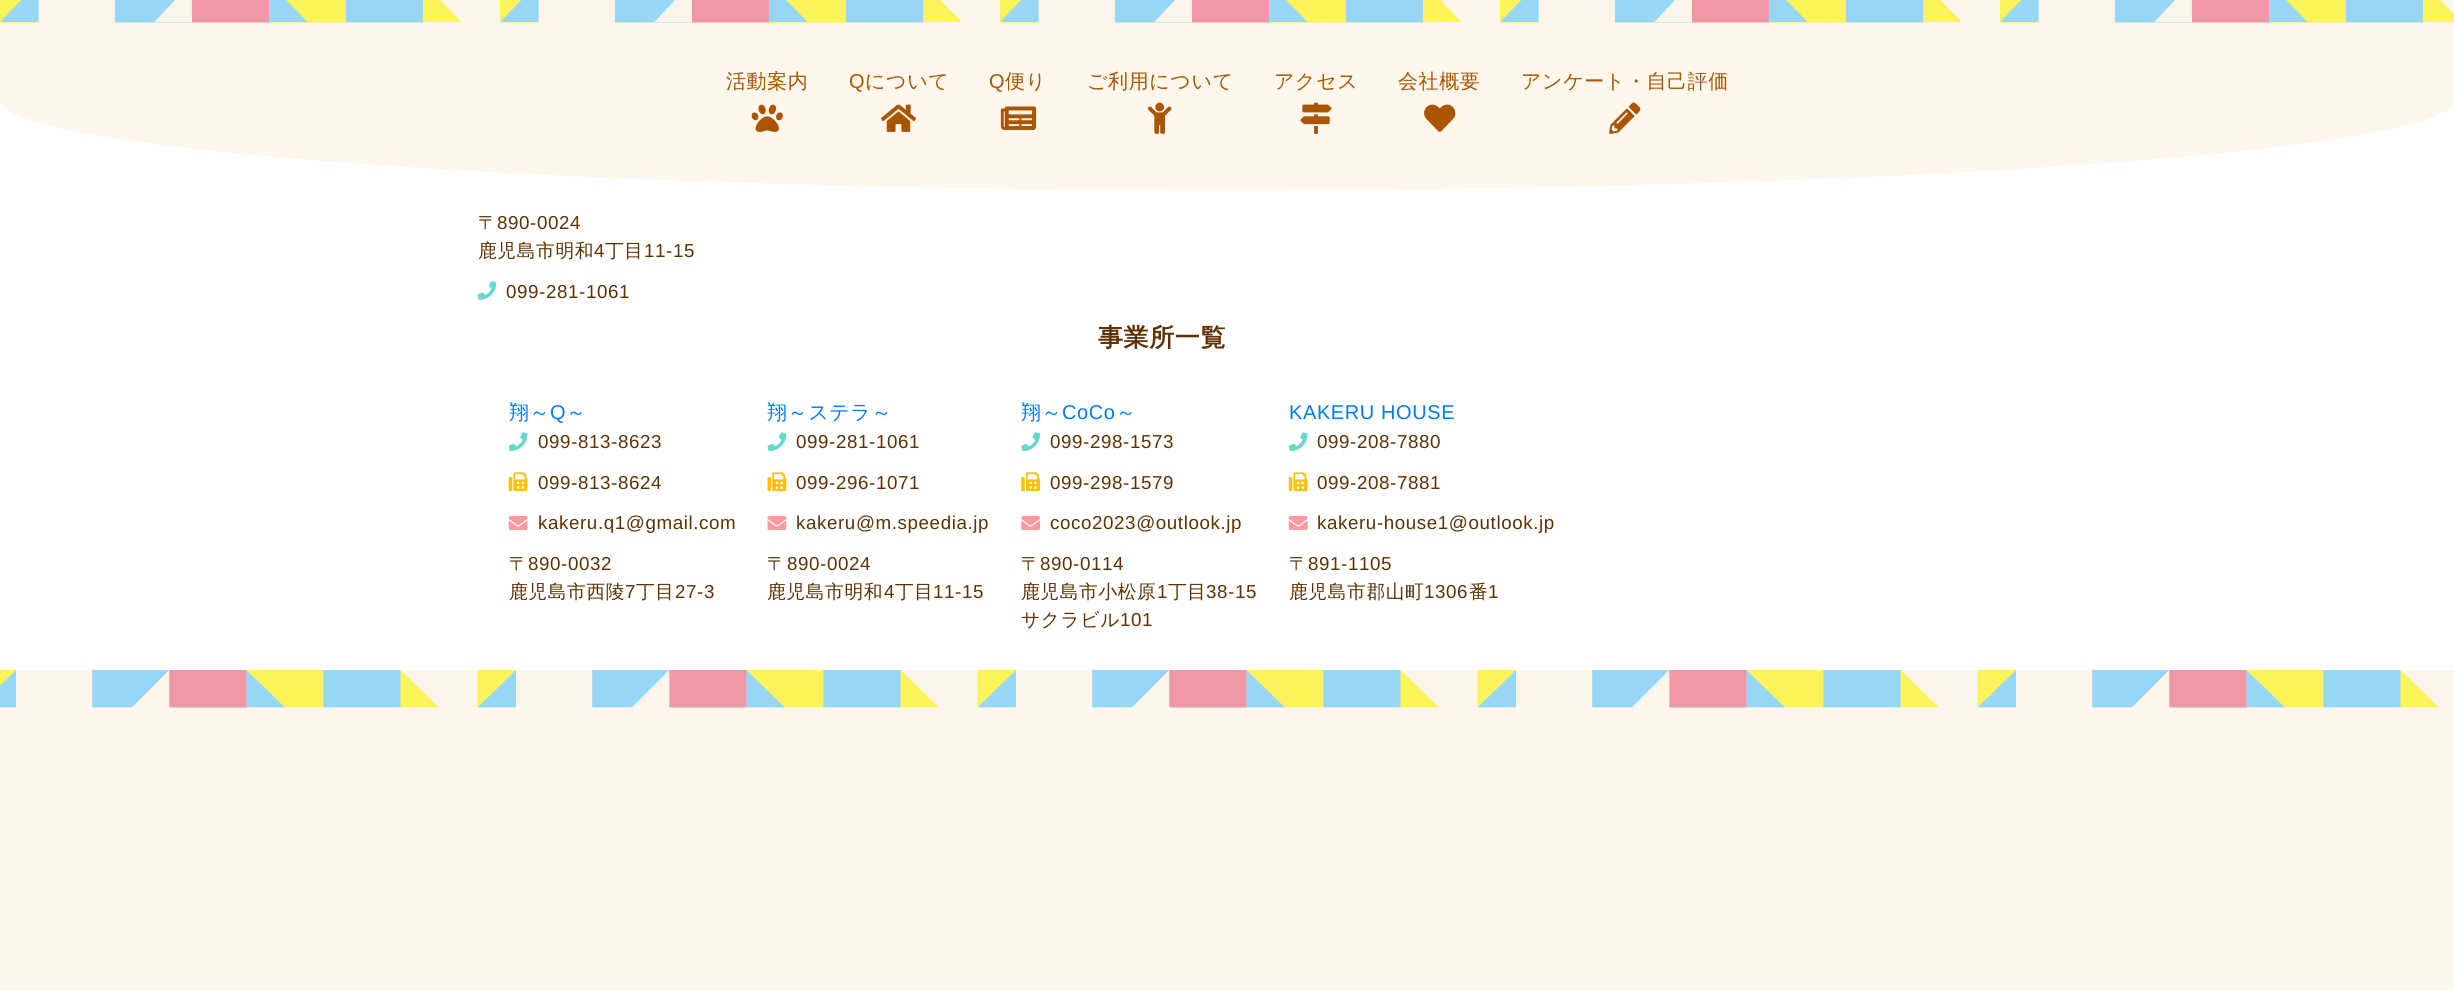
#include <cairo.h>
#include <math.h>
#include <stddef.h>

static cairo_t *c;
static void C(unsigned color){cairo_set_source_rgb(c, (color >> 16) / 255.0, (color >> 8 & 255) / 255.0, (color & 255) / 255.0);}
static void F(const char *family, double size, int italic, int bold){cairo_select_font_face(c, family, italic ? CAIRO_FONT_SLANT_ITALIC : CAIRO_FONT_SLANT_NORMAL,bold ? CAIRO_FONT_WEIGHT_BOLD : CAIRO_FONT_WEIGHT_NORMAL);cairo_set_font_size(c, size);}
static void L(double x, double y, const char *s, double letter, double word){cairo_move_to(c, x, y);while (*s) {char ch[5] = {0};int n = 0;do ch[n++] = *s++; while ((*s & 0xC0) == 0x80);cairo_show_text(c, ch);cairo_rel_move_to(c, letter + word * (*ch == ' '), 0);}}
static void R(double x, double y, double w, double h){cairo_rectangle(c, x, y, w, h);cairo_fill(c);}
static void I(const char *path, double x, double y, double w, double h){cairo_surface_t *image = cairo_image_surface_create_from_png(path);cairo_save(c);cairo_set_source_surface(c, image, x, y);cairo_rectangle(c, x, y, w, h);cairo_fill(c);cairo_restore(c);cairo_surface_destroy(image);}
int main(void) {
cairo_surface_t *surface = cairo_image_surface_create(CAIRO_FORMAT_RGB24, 2454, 991);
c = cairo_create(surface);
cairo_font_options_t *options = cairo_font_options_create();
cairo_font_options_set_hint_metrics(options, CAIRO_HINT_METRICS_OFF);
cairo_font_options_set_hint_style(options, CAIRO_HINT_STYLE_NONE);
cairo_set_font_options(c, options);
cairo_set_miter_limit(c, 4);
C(0xfff6ec);
cairo_paint(c);
I("1.png",0,0,2454,23);
F("WenQuanYi Zen Hei Medium",20,0,0);
C(0xa95502);
L(726,88,"活動案内",.6,0);
C(0xffffff);
R(0,100,2454,608);
C(0xfff6ec);
cairo_new_path(c);
cairo_move_to(c,0,100);
cairo_line_to(c,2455,100);
cairo_curve_to(c,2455,150,1905,190,1228,190);
cairo_curve_to(c,550,190,0,150,0,100);
cairo_close_path(c);
cairo_fill(c);
I("2.png",751,104,32,28);
F("Liberation Sans",20,0,0);
C(0xa95502);
L(849,88,"Q",.6,0);
F("WenQuanYi Zen Hei Medium",20,0,0);
L(865,88,"について",.6,0);
I("3.png",881,104,35,28);
F("Liberation Sans",20,0,0);
L(989,88,"Q",.6,0);
F("WenQuanYi Zen Hei Medium",20,0,0);
L(1005,88,"便り",.6,0);
I("4.png",1000,106,36,24);
L(1087,88,"ご利用について",.6,0);
I("5.png",1148,102,24,32);
L(1274,88,"アクセス",.6,0);
I("6.png",1300,102,32,32);
L(1398,88,"会社概要",.6,0);
I("7.png",1424,104,32,28);
L(1521,88,"アンケート・自己評価",.6,0);
I("8.png",1609,102,32,32);
I("9.png",0,670,2454,38);
F("WenQuanYi Zen Hei Medium",18.75,0,0);
C(0x5f3103);
L(478,229,"〒",.6,0);
F("Liberation Sans",18.75,0,0);
L(497,229,"890-0024",.6,0);
F("WenQuanYi Zen Hei Medium",18.75,0,0);
L(478,257,"鹿児島市明和",.6,0);
F("Liberation Sans",18.75,0,0);
L(594,257,"4",.6,0);
F("WenQuanYi Zen Hei Medium",18.75,0,0);
L(605,257,"丁目",.6,0);
F("Liberation Sans",18.75,0,0);
L(644,257,"11-15",.6,0);
I("10.png",477,281,20,19);
L(506,298,"099-281-1061",.6,0);
F("WenQuanYi Zen Hei",25,0,1);
L(1098,346,"事業所一覧",.6,0);
F("WenQuanYi Zen Hei Medium",20,0,0);
C(0x007bff);
L(509,419,"翔～",.6,0);
F("Liberation Sans",20,0,0);
L(550,419,"Q",.6,0);
F("WenQuanYi Zen Hei Medium",20,0,0);
L(566,419,"～",.6,0);
I("11.png",508,432,20,20);
F("Liberation Sans",18.75,0,0);
C(0x5f3103);
L(538,448,"099-813-8623",.6,0);
I("12.png",508,472,20,20);
L(538,489,"099-813-8624",.6,0);
I("13.png",508,515,20,15);
L(538,529,"kakeru.q1@gmail.com",.6,0);
F("WenQuanYi Zen Hei Medium",18.75,0,0);
L(509,570,"〒",.6,0);
F("Liberation Sans",18.75,0,0);
L(528,570,"890-0032",.6,0);
F("WenQuanYi Zen Hei Medium",18.75,0,0);
L(509,598,"鹿児島市西陵",.6,0);
F("Liberation Sans",18.75,0,0);
L(625,598,"7",.6,0);
F("WenQuanYi Zen Hei Medium",18.75,0,0);
L(636,598,"丁目",.6,0);
F("Liberation Sans",18.75,0,0);
L(675,598,"27-3",.6,0);
F("WenQuanYi Zen Hei Medium",20,0,0);
C(0x007bff);
L(767,419,"翔～ステラ～",.6,0);
I("14.png",767,432,20,20);
F("Liberation Sans",18.75,0,0);
C(0x5f3103);
L(796,448,"099-281-1061",.6,0);
I("15.png",767,472,20,20);
L(796,489,"099-296-1071",.6,0);
I("16.png",767,515,20,15);
L(796,529,"kakeru@m.speedia.jp",.6,0);
F("WenQuanYi Zen Hei Medium",18.75,0,0);
L(767,570,"〒",.6,0);
F("Liberation Sans",18.75,0,0);
L(787,570,"890-0024",.6,0);
F("WenQuanYi Zen Hei Medium",18.75,0,0);
L(767,598,"鹿児島市明和",.6,0);
F("Liberation Sans",18.75,0,0);
L(884,598,"4",.6,0);
F("WenQuanYi Zen Hei Medium",18.75,0,0);
L(895,598,"丁目",.6,0);
F("Liberation Sans",18.75,0,0);
L(933,598,"11-15",.6,0);
F("WenQuanYi Zen Hei Medium",20,0,0);
C(0x007bff);
L(1021,419,"翔～",.6,0);
F("Liberation Sans",20,0,0);
L(1062,419,"CoCo",.6,0);
F("WenQuanYi Zen Hei Medium",20,0,0);
L(1116,419,"～",.6,0);
I("17.png",1021,432,19,20);
F("Liberation Sans",18.75,0,0);
C(0x5f3103);
L(1050,448,"099-298-1573",.6,0);
I("18.png",1021,472,19,20);
L(1050,489,"099-298-1579",.6,0);
I("19.png",1021,515,19,15);
L(1050,529,"coco2023@outlook.jp",.6,0);
F("WenQuanYi Zen Hei Medium",18.75,0,0);
L(1021,570,"〒",.6,0);
F("Liberation Sans",18.75,0,0);
L(1040,570,"890-0114",.6,0);
F("WenQuanYi Zen Hei Medium",18.75,0,0);
L(1021,598,"鹿児島市小松原",.6,0);
F("Liberation Sans",18.75,0,0);
L(1157,598,"1",.6,0);
F("WenQuanYi Zen Hei Medium",18.75,0,0);
L(1168,598,"丁目",.6,0);
F("Liberation Sans",18.75,0,0);
L(1206,598,"38-15",.6,0);
F("WenQuanYi Zen Hei Medium",18.75,0,0);
L(1021,626,"サクラビル",.6,0);
F("Liberation Sans",18.75,0,0);
L(1120,626,"101",.6,0);
F("Liberation Sans",20,0,0);
C(0x007bff);
L(1289,419,"KAKERU HOUSE",.6,0);
I("11.png",1288,432,20,20);
F("Liberation Sans",18.75,0,0);
C(0x5f3103);
L(1317,448,"099-208-7880",.6,0);
I("12.png",1288,472,20,20);
L(1317,489,"099-208-7881",.6,0);
I("13.png",1288,515,20,15);
L(1317,529,"kakeru-house1@outlook.jp",.6,0);
F("WenQuanYi Zen Hei Medium",18.75,0,0);
L(1289,570,"〒",.6,0);
F("Liberation Sans",18.75,0,0);
L(1308,570,"891-1105",.6,0);
F("WenQuanYi Zen Hei Medium",18.75,0,0);
L(1289,598,"鹿児島市郡山町",.6,0);
F("Liberation Sans",18.75,0,0);
L(1424,598,"1306",.6,0);
F("WenQuanYi Zen Hei Medium",18.75,0,0);
L(1469,598,"番",.6,0);
F("Liberation Sans",18.75,0,0);
L(1488,598,"1",.6,0);
cairo_surface_write_to_png(surface, "o.png");
cairo_font_options_destroy(options);
cairo_destroy(c);
cairo_surface_destroy(surface);
return 0;
}
